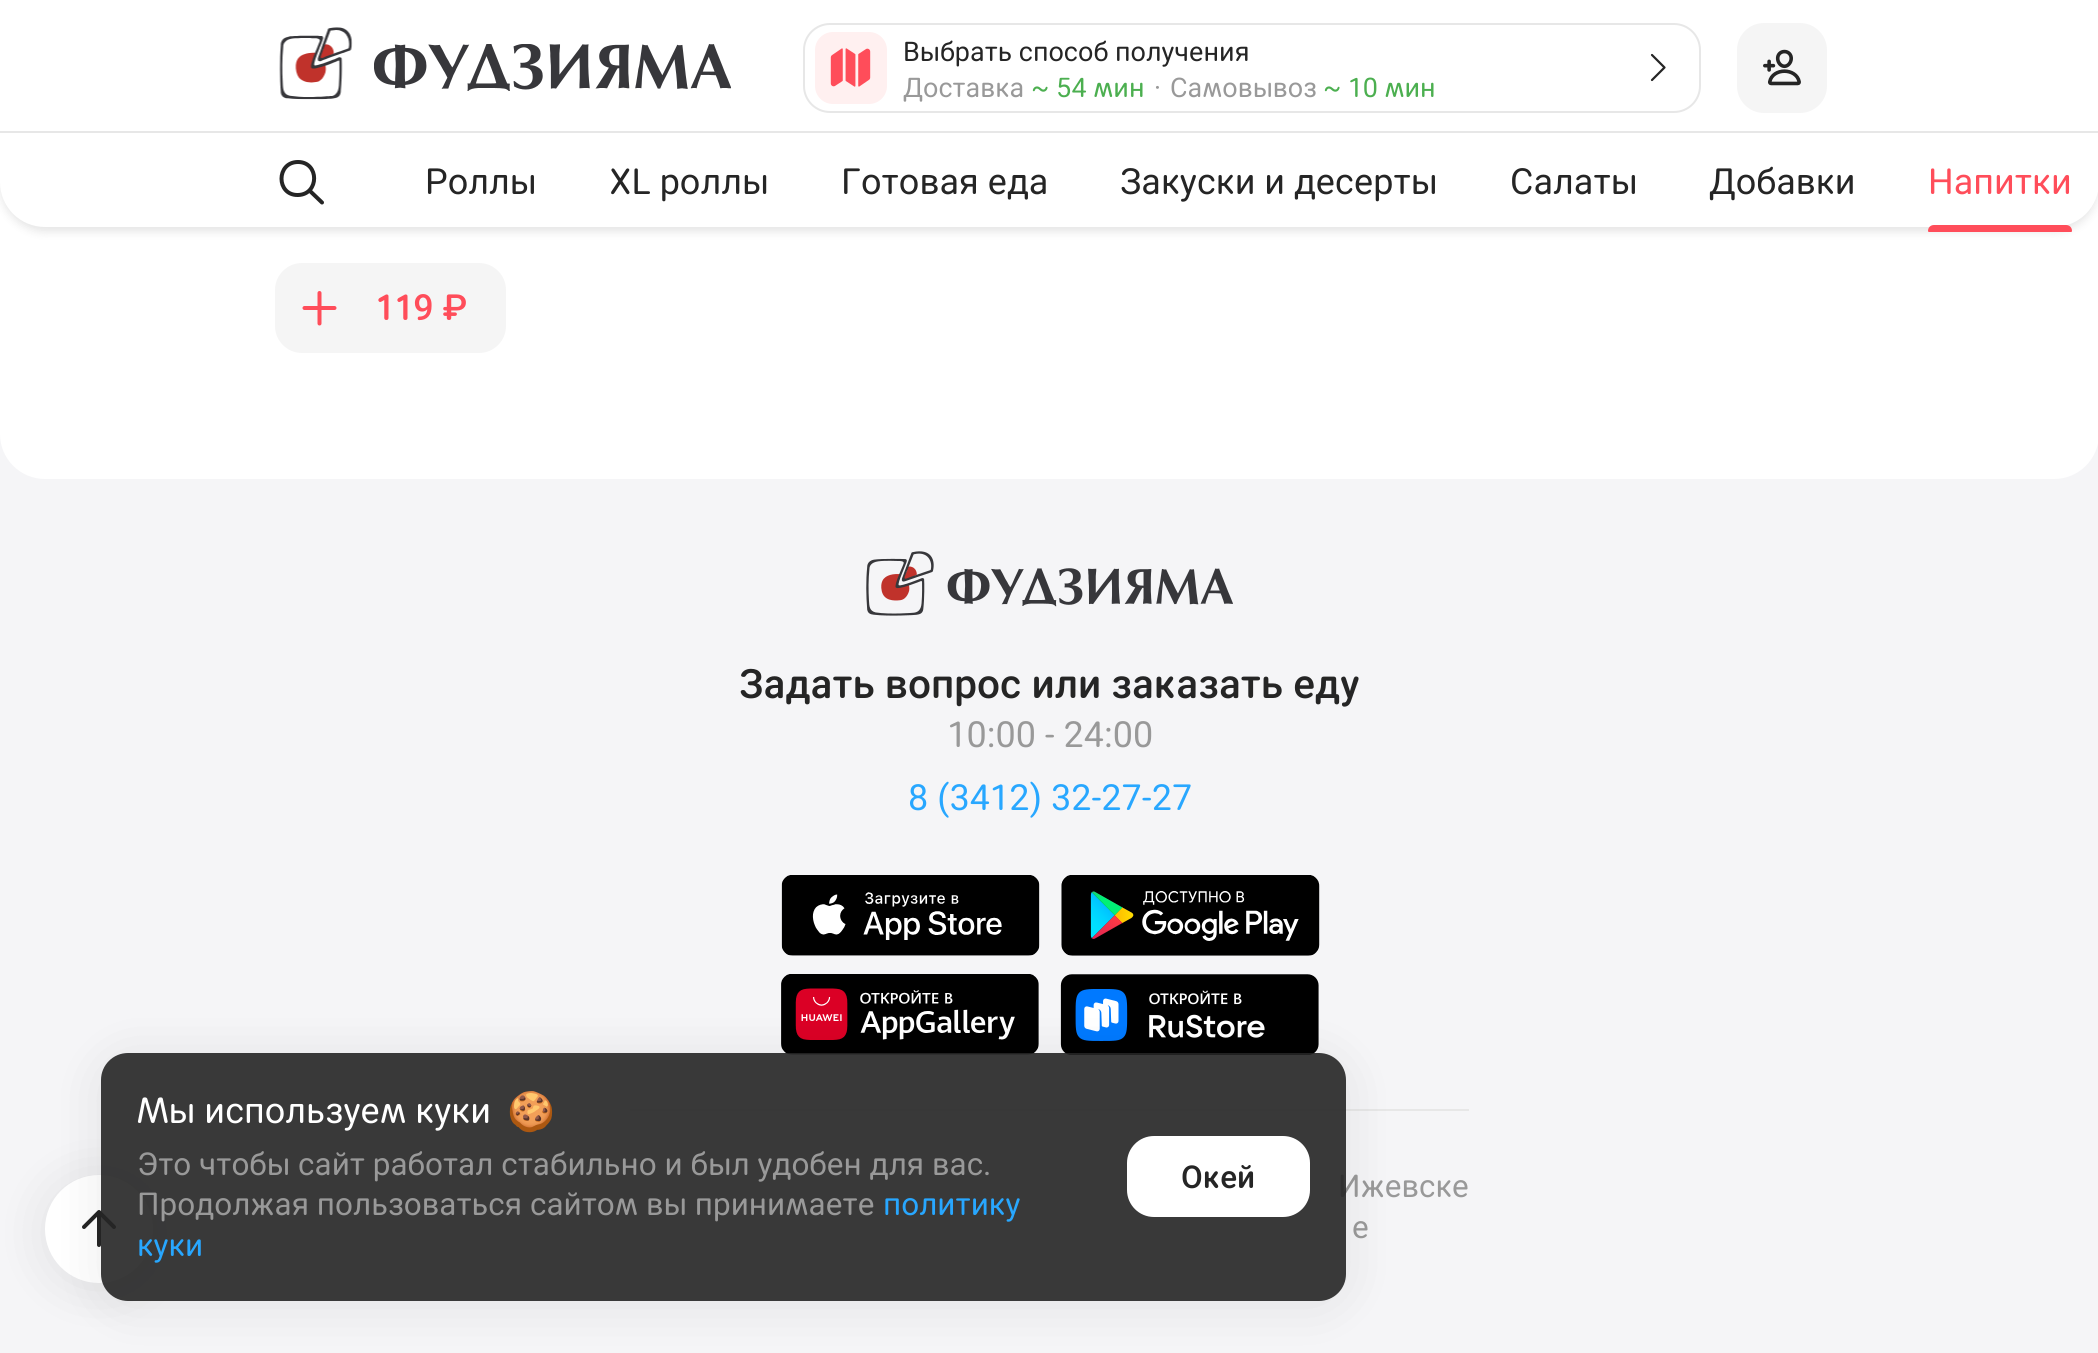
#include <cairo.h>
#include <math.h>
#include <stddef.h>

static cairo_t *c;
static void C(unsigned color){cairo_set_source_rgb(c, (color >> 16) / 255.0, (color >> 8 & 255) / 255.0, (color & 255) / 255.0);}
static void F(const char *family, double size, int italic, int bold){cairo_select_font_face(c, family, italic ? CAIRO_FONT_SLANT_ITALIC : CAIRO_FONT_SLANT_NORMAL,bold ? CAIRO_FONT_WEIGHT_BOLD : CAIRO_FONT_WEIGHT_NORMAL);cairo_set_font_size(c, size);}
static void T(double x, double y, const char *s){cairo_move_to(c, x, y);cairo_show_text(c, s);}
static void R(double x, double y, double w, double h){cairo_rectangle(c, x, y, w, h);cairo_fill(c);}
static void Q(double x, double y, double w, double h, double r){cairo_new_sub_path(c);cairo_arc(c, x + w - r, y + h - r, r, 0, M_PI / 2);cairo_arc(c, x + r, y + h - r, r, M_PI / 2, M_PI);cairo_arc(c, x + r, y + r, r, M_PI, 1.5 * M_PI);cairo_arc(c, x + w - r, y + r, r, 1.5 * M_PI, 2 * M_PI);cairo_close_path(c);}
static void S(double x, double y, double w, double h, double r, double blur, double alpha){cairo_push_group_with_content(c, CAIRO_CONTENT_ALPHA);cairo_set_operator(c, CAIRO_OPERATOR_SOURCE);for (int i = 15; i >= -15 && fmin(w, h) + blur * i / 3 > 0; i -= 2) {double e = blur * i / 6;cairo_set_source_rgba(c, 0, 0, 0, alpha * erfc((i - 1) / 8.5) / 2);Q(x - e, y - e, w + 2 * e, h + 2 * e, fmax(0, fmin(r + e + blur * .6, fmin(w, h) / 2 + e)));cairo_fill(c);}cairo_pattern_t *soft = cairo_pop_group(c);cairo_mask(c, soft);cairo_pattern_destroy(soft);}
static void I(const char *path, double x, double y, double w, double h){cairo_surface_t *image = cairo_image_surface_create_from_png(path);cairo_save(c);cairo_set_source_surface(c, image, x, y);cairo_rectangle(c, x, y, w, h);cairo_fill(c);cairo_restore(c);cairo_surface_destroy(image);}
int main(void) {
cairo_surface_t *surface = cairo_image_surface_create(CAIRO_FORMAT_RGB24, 2098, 1353);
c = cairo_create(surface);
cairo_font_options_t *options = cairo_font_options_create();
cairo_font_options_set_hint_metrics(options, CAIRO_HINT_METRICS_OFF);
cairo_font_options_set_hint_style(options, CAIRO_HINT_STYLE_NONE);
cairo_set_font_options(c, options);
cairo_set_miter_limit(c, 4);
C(0xf5f5f7);
cairo_paint(c);
C(0x000000);
S(45,1179,108,108,54,27,.08);
C(0xffffff);
cairo_arc(c,99,1229,54,0,2 * M_PI);
cairo_fill(c);
cairo_new_path(c);
cairo_move_to(c,84,1227);
cairo_line_to(c,99,1212);
cairo_line_to(c,114,1227);
cairo_move_to(c,99,1214);
cairo_line_to(c,99,1245);
C(0x252525);
cairo_set_line_width(c,4);
cairo_set_line_cap(c,CAIRO_LINE_CAP_ROUND);
cairo_set_line_join(c,CAIRO_LINE_JOIN_ROUND);
cairo_stroke(c);
C(0xffffff);
Q(0,-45,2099,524,45);
cairo_fill(c);
C(0x000000);
S(0,5,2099,227,45,4.5,.1);
C(0xffffff);
cairo_new_path(c);
cairo_move_to(c,0,0);
cairo_line_to(c,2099,0);
cairo_line_to(c,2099,182);
cairo_curve_to(c,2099,207,2079,227,2054,227);
cairo_line_to(c,45,227);
cairo_curve_to(c,20,227,0,207,0,182);
cairo_close_path(c);
cairo_fill(c);
I("1.png",279,27,74,73);
I("2.png",374,44,357,47);
Q(804,24,896,88,26);
C(0xe7e7e7);
cairo_set_line_width(c,2);
cairo_set_line_cap(c,CAIRO_LINE_CAP_BUTT);
cairo_set_line_join(c,CAIRO_LINE_JOIN_MITER);
cairo_stroke(c);
C(0xfff0f0);
Q(815,32,72,72,18);
cairo_fill(c);
I("3.png",830,48,41,39);
F("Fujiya",27,0,0);
C(0x252525);
T(903,61,"Выбрать способ получения");
C(0x999999);
T(903,97,"Доставка");
C(0x4caf50);
T(1031,97,"~ 54 мин");
C(0x999999);
T(1154,97,"·");
T(1170,97,"Самовывоз");
C(0x4caf50);
T(1323,97,"~ 10 мин");
cairo_new_path(c);
cairo_move_to(c,1652,55);
cairo_line_to(c,1664.5,67.5);
cairo_line_to(c,1652,80);
C(0x252525);
cairo_set_line_width(c,2.2);
cairo_set_line_cap(c,CAIRO_LINE_CAP_ROUND);
cairo_set_line_join(c,CAIRO_LINE_JOIN_ROUND);
cairo_stroke(c);
C(0xf5f5f5);
Q(1737,23,90,90,27);
cairo_fill(c);
I("4.png",1763,49,38,37);
C(0xe7e7e7);
R(0,131,2098,2);
cairo_new_path(c);
cairo_move_to(c,310,191);
cairo_line_to(c,322,202.5);
cairo_move_to(c,298,162);
cairo_curve_to(c,276,162,276,195.5,298,195);
cairo_curve_to(c,319.5,194.5,319.5,162,298,162);
cairo_close_path(c);
C(0x252525);
cairo_set_line_width(c,4);
cairo_set_line_join(c,CAIRO_LINE_JOIN_MITER);
cairo_stroke(c);
F("Fujiya",36,0,0);
T(425,194,"Роллы");
T(609,194,"XL роллы");
T(841,194,"Готовая еда");
T(1120,194,"Закуски и десерты");
T(1510,194,"Салаты");
T(1709,194,"Добавки");
C(0xff4d5a);
T(1928,194,"Напитки");
cairo_new_path(c);
cairo_move_to(c,1934,225);
cairo_line_to(c,2066,225);
cairo_curve_to(c,2069.5,225,2072,227.5,2072,231);
cairo_curve_to(c,2072,231.5,2071.5,232,2071,232);
cairo_line_to(c,1929,232);
cairo_curve_to(c,1928.5,232,1928,231.5,1928,231);
cairo_curve_to(c,1928,227.5,1930.5,225,1934,225);
cairo_close_path(c);
cairo_fill(c);
C(0xf5f5f5);
Q(275,263,231,90,27);
cairo_fill(c);
cairo_new_path(c);
cairo_move_to(c,319.5,293);
cairo_line_to(c,319.5,323.5);
cairo_move_to(c,334.5,308);
cairo_line_to(c,304.5,308);
C(0xff4d5a);
cairo_set_line_join(c,CAIRO_LINE_JOIN_ROUND);
cairo_stroke(c);
F("Fujiya Medium",36,0,0);
T(375,320,"119 ₽");
I("5.png",866,551,367,65);
F("Fujiya Medium",40.5,0,0);
C(0x252525);
T(739,698,"Задать вопрос или заказать еду");
F("Fujiya",36,0,0);
C(0x999999);
T(947,747,"10:00 - 24:00");
C(0x28a7ff);
T(908,810,"8 (3412) 32-27-27");
I("6.png",781,875,259,81);
I("7.png",1061,875,259,81);
I("8.png",781,974,258,81);
I("9.png",1060,974,259,81);
C(0xe7e7e7);
R(630,1109,839,2);
F("Fujiya",31.5,0,0);
C(0x999999);
T(1338,1197,"Ижевске");
T(1352,1238,"е");
cairo_save(c);
cairo_set_fill_rule(c,CAIRO_FILL_RULE_EVEN_ODD);
cairo_new_path(c);
cairo_move_to(c,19,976);
cairo_line_to(c,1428,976);
cairo_line_to(c,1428,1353);
cairo_line_to(c,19,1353);
cairo_close_path(c);
cairo_move_to(c,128,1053);
cairo_line_to(c,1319,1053);
cairo_curve_to(c,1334,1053,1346,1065,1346,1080);
cairo_line_to(c,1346,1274);
cairo_curve_to(c,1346,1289,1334,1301,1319,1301);
cairo_line_to(c,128,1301);
cairo_curve_to(c,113,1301,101,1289,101,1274);
cairo_line_to(c,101,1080);
cairo_curve_to(c,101,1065,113,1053,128,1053);
cairo_close_path(c);
cairo_clip(c);
C(0x000000);
S(101,1058,1245,247,27,27,.08);
cairo_restore(c);
cairo_set_source_rgba(c,0.145,0.145,0.145,0.9);
Q(101,1053,1245,248,27);
cairo_fill(c);
F("Fujiya",36,0,0);
C(0xffffff);
T(137,1123,"Мы используем куки");
I("10.png",509,1091,44,42);
F("Fujiya",31.5,0,0);
C(0x999999);
T(137,1175,"Это чтобы сайт работал стабильно и был удобен для вас.");
T(137,1215,"Продолжая пользоваться сайтом вы принимаете");
C(0x28a7ff);
T(883,1215,"политику");
T(137,1256,"куки");
C(0xffffff);
Q(1127,1136,183,81,27);
cairo_fill(c);
F("Fujiya Medium",31.5,0,0);
C(0x252525);
T(1181,1188,"Окей");
cairo_surface_write_to_png(surface, "o.png");
cairo_font_options_destroy(options);
cairo_destroy(c);
cairo_surface_destroy(surface);
return 0;
}
